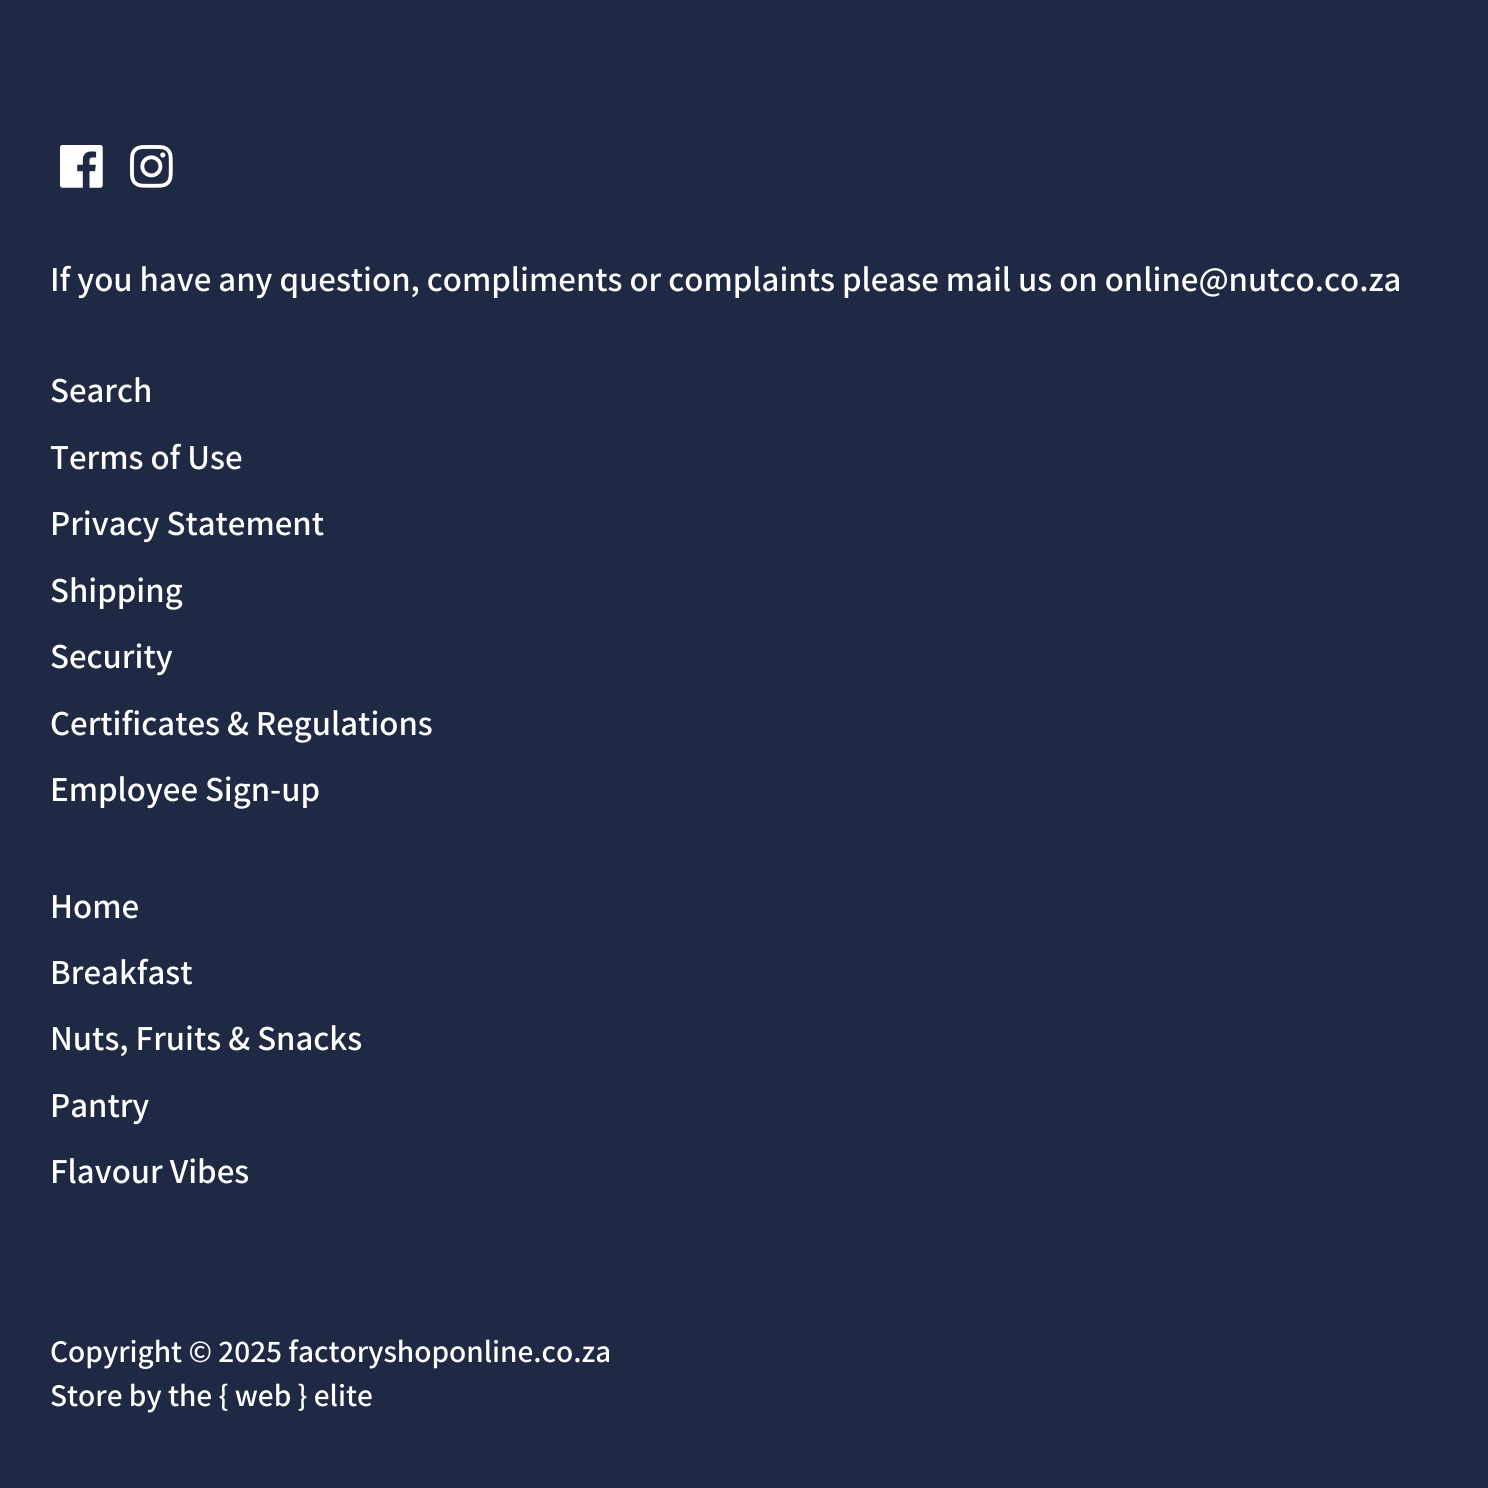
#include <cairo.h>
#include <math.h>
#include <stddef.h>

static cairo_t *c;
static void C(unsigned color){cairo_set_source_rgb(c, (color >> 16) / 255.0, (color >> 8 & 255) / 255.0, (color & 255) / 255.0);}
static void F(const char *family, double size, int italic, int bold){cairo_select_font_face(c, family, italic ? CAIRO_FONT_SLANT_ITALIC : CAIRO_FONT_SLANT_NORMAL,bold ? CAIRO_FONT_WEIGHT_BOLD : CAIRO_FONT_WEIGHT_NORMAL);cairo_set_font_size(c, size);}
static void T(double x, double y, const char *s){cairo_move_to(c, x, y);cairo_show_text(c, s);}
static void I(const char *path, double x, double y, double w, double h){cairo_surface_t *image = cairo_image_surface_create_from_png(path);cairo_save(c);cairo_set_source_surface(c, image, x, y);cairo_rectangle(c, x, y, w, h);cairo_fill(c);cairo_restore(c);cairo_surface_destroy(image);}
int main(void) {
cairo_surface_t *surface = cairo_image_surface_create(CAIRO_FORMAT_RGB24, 1488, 1488);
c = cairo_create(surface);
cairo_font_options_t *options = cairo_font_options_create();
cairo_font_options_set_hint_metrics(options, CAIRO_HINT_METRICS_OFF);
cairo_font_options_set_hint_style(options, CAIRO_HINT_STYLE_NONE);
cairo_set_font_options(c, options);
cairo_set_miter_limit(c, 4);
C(0x202944);
cairo_paint(c);
I("1.png",60,145,43,43);
I("2.png",130,145,43,43);
F("Assistant SemiBold",35,0,0);
C(0xffffff);
T(50,291,"If you have any question, compliments or complaints please mail us on online@nutco.co.za");
T(50,402,"Search");
T(50,469,"Terms of Use");
T(50,535,"Privacy Statement");
T(50,602,"Shipping");
T(50,668,"Security");
T(50,735,"Certificates & Regulations");
T(50,801,"Employee Sign-up");
T(50,918,"Home");
T(50,984,"Breakfast");
T(50,1050,"Nuts, Fruits & Snacks");
T(50,1117,"Pantry");
T(50,1183,"Flavour Vibes");
F("Assistant SemiBold",31.5,0,0);
T(50,1362,"Copyright © 2025 factoryshoponline.co.za");
T(50,1406,"Store by the { web } elite");
cairo_surface_write_to_png(surface, "o.png");
cairo_font_options_destroy(options);
cairo_destroy(c);
cairo_surface_destroy(surface);
return 0;
}
